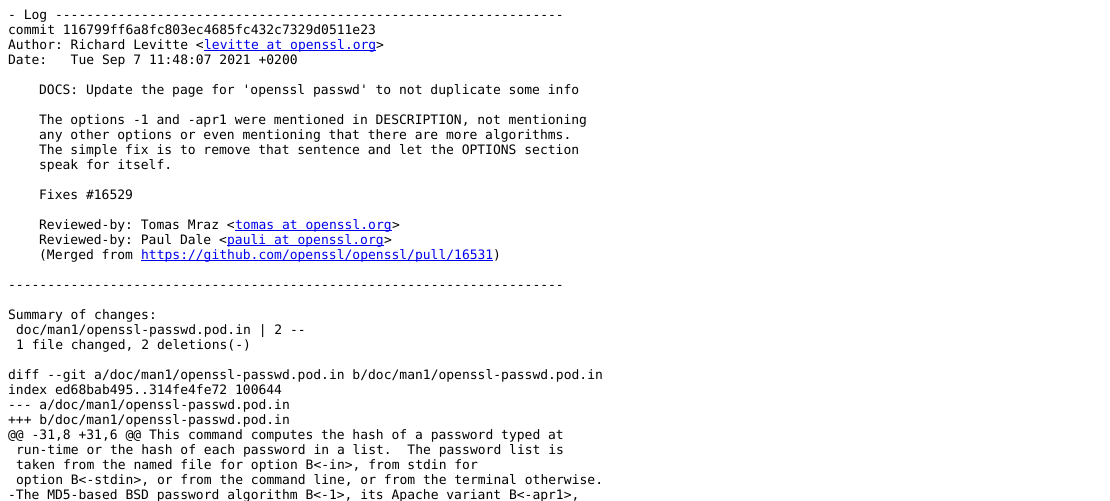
#include <cairo.h>
#include <math.h>
#include <stddef.h>

static cairo_t *c;
static void C(unsigned color){cairo_set_source_rgb(c, (color >> 16) / 255.0, (color >> 8 & 255) / 255.0, (color & 255) / 255.0);}
static void F(const char *family, double size, int italic, int bold){cairo_select_font_face(c, family, italic ? CAIRO_FONT_SLANT_ITALIC : CAIRO_FONT_SLANT_NORMAL,bold ? CAIRO_FONT_WEIGHT_BOLD : CAIRO_FONT_WEIGHT_NORMAL);cairo_set_font_size(c, size);}
static void T(double x, double y, const char *s){cairo_move_to(c, x, y);cairo_show_text(c, s);}
static void R(double x, double y, double w, double h){cairo_rectangle(c, x, y, w, h);cairo_fill(c);}
int main(void) {
cairo_surface_t *surface = cairo_image_surface_create(CAIRO_FORMAT_RGB24, 1110, 501);
c = cairo_create(surface);
cairo_font_options_t *options = cairo_font_options_create();
cairo_font_options_set_hint_metrics(options, CAIRO_HINT_METRICS_OFF);
cairo_font_options_set_hint_style(options, CAIRO_HINT_STYLE_NONE);
cairo_set_font_options(c, options);
cairo_set_miter_limit(c, 4);
C(0xffffff);
cairo_paint(c);
F("DejaVu Sans Mono",13,0,0);
C(0x000000);
T(8,19,"- Log -----------------------------------------------------------------");
T(8,34,"commit 116799ff6a8fc803ec4685fc432c7329d0511e23");
T(8,49,"Author: Richard Levitte <");
C(0x0000ee);
R(204,50,172,1);
T(204,49,"levitte at openssl.org");
C(0x000000);
T(376,49,">");
T(8,64,"Date:   Tue Sep 7 11:48:07 2021 +0200");
T(39,94,"DOCS: Update the page for 'openssl passwd' to not duplicate some info");
T(39,124,"The options -1 and -apr1 were mentioned in DESCRIPTION, not mentioning");
T(39,139,"any other options or even mentioning that there are more algorithms.");
T(39,154,"The simple fix is to remove that sentence and let the OPTIONS section");
T(39,169,"speak for itself.");
T(39,199,"Fixes #16529");
T(39,229,"Reviewed-by: Tomas Mraz <");
C(0x0000ee);
R(235,230,157,1);
T(235,229,"tomas at openssl.org");
C(0x000000);
T(392,229,">");
T(39,244,"Reviewed-by: Paul Dale <");
C(0x0000ee);
R(227,245,157,1);
T(227,244,"pauli at openssl.org");
C(0x000000);
T(384,244,">");
T(39,259,"(Merged from");
C(0x0000ee);
R(141,260,352,1);
T(141,259,"https://github.com/openssl/openssl/pull/16531");
C(0x000000);
T(493,259,")");
T(8,289,"-----------------------------------------------------------------------");
T(8,319,"Summary of changes:");
T(16,334,"doc/man1/openssl-passwd.pod.in | 2 --");
T(16,349,"1 file changed, 2 deletions(-)");
T(8,379,"diff --git a/doc/man1/openssl-passwd.pod.in b/doc/man1/openssl-passwd.pod.in");
T(8,394,"index ed68bab495..314fe4fe72 100644");
T(8,409,"--- a/doc/man1/openssl-passwd.pod.in");
T(8,424,"+++ b/doc/man1/openssl-passwd.pod.in");
T(8,439,"@@ -31,8 +31,6 @@ This command computes the hash of a password typed at");
T(16,454,"run-time or the hash of each password in a list.  The password list is");
T(16,469,"taken from the named file for option B<-in>, from stdin for");
T(16,484,"option B<-stdin>, or from the command line, or from the terminal otherwise.");
T(8,499,"-The MD5-based BSD password algorithm B<-1>, its Apache variant B<-apr1>,");
cairo_surface_write_to_png(surface, "o.png");
cairo_font_options_destroy(options);
cairo_destroy(c);
cairo_surface_destroy(surface);
return 0;
}
